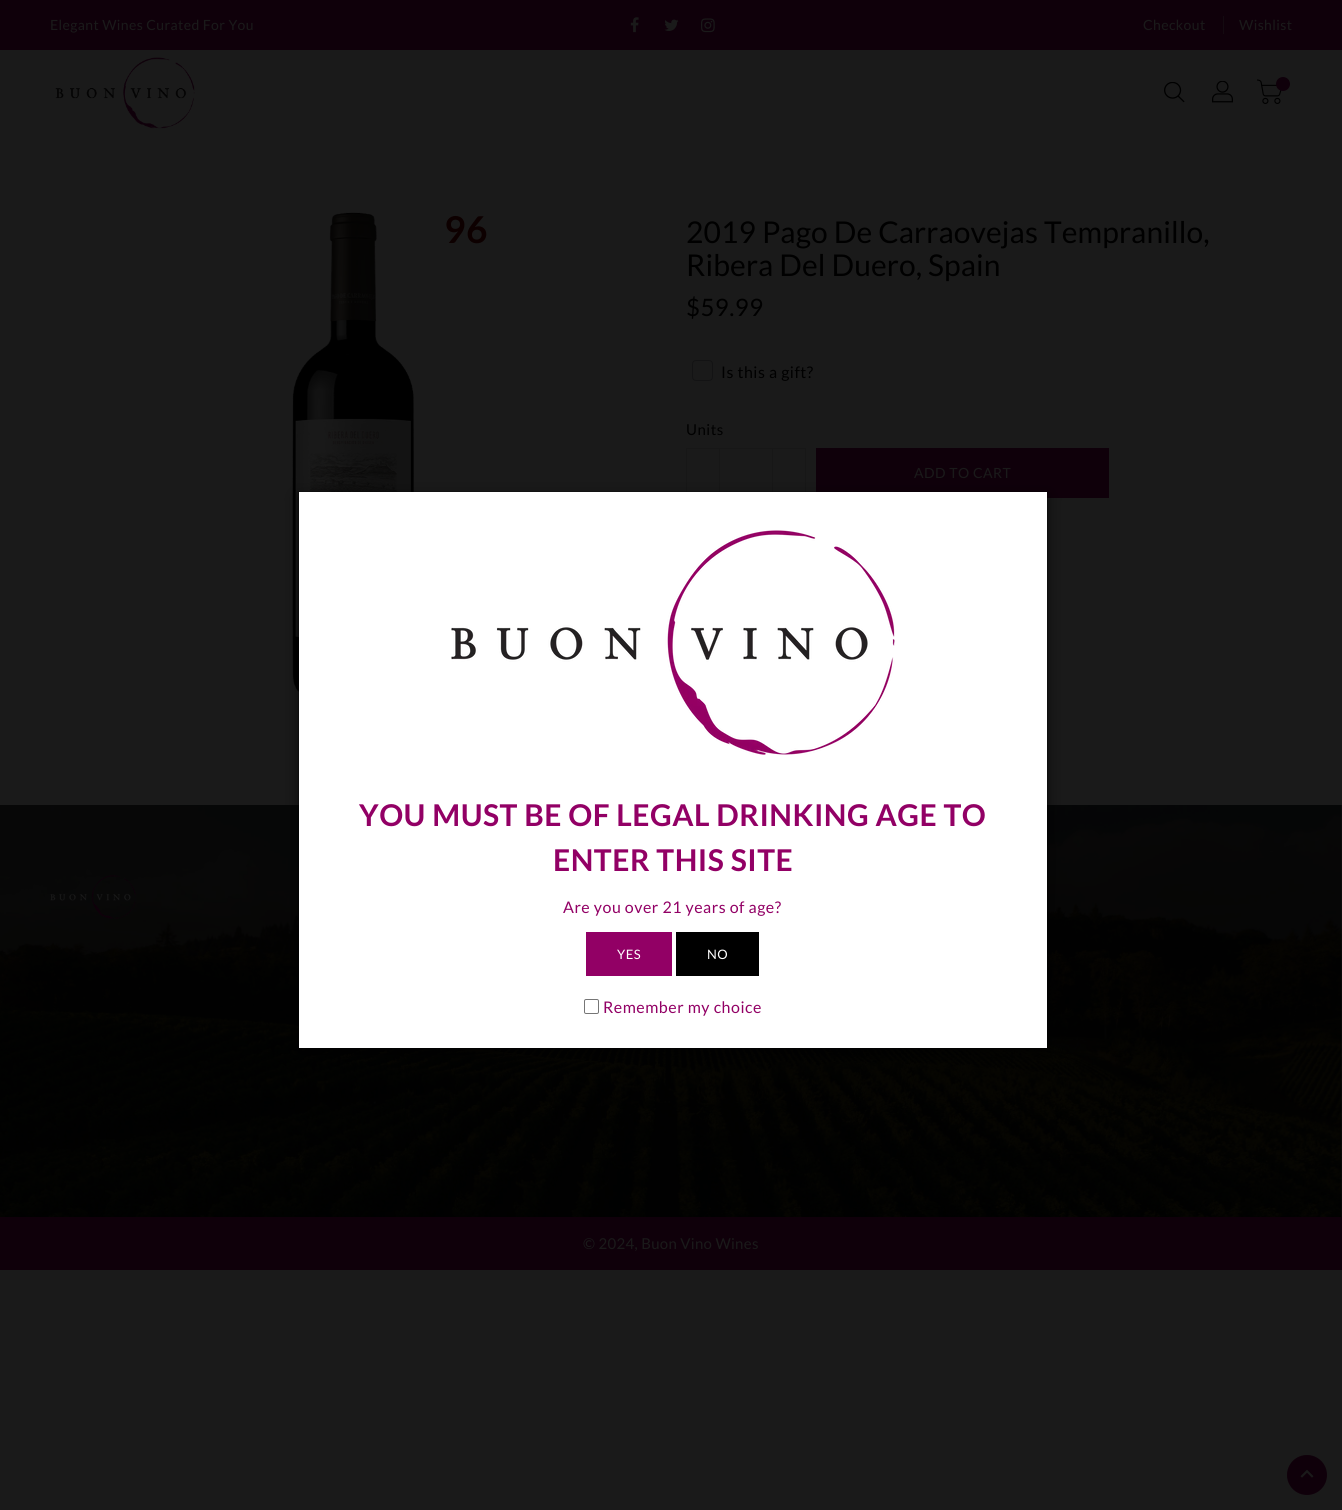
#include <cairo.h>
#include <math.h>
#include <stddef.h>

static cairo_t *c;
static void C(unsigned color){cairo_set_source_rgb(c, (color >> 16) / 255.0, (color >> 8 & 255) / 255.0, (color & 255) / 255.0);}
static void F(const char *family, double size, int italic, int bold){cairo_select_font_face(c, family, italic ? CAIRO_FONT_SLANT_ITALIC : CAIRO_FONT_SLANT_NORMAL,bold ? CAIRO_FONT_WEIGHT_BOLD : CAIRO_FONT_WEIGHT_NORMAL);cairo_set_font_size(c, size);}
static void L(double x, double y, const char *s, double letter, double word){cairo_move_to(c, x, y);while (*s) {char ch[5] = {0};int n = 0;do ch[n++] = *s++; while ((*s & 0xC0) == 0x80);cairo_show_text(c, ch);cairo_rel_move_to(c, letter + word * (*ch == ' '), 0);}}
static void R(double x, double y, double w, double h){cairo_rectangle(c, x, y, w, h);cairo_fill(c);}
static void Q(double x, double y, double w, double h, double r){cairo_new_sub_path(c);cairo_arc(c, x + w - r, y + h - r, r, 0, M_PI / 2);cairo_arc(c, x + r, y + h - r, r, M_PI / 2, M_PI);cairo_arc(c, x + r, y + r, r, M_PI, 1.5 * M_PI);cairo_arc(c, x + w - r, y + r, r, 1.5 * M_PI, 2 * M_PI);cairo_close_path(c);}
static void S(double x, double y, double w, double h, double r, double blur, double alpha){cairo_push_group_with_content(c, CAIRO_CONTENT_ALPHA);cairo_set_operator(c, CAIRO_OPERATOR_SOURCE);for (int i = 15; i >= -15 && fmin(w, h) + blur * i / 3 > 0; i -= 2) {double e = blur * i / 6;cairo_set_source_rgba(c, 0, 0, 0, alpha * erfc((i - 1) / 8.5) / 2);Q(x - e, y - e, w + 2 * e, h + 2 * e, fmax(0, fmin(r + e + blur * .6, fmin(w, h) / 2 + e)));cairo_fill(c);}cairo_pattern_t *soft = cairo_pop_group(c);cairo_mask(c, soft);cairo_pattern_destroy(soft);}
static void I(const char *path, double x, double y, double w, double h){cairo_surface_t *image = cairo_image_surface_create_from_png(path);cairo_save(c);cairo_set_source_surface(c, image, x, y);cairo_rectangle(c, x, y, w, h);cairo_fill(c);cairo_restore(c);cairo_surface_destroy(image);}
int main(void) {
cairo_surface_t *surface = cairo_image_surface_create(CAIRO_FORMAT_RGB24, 1342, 1510);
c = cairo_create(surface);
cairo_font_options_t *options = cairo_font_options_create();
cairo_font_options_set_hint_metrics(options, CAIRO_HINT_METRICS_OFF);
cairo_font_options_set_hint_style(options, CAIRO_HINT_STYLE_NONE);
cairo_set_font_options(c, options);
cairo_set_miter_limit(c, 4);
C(0x1a1a1a);
cairo_paint(c);
C(0x0f000a);
R(0,0,1342,50);
F("Lato",14,0,0);
C(0x1a1a1a);
L(50,30,"Elegant Wines Curated For You",.4,0);
I("1.png",630,17,9,16);
I("2.png",664,19,15,12);
I("3.png",701,18,14,15);
L(1143,30,"Checkout",.4,0);
C(0x130a10);
R(1223,16,1,18);
C(0x1a1a1a);
L(1239,30,"Wishlist",.4,0);
I("4.png",55,57,140,72);
I("5.png",1164,82,21,21);
I("6.png",1212,81,21,22);
I("7.png",1257,79,25,25);
C(0x0f000a);
cairo_arc(c,1283,84,7,0,2 * M_PI);
cairo_fill(c);
I("8.png",292,212,122,480);
F("Lato",37,0,1);
C(0x0d0000);
L(444,243,"96",.5,0);
F("Lato",30,0,0);
C(0x000000);
L(686,243,"2019 Pago De Carraovejas Tempranillo,",.1,0);
L(686,276,"Ribera Del Duero, Spain",.1,0);
F("Lato",24,0,0);
L(686,316,"$59.99",.5,0);
Q(692.5,360.5,20,20,3.5);
C(0x131314);
cairo_set_line_width(c,1);
cairo_stroke(c);
F("Lato",16,0,0);
C(0x000000);
L(721,378,"Is this a gift?",.5,0);
F("Lato",15,0,0);
L(686,435,"Units",.5,0);
cairo_rectangle(c,686.5,448.5,33,49);
C(0x171717);
cairo_stroke(c);
R(720,448,52,1);
cairo_rectangle(c,772.5,448.5,33,49);
cairo_stroke(c);
C(0x0f000a);
R(816,448,293,50);
F("Lato",14,0,0);
C(0x1a1a1a);
L(914,478,"ADD TO CART",.5,0);
I("9.png",0,805,1342,412);
I("10.png",50,875,86,44);
C(0x0f000a);
R(0,1217,1342,53);
F("Lato",15,0,0);
C(0x1a1a1a);
L(583,1249,"© 2024, Buon Vino Wines",.3,0);
C(0x000000);
S(298,496,750,558,0,7.5,.5);
C(0xffffff);
R(299,492,748,556);
cairo_rectangle(c,298.5,491.5,749,557);
cairo_set_source_rgba(c,0,0,0,0.2);
cairo_stroke(c);
I("11.png",451,530,444,225);
F("Lato",30,0,1);
C(0x920065);
L(359,826,"YOU MUST BE OF LEGAL DRINKING AGE TO",.5,0);
L(553,871,"ENTER THIS SITE",.5,0);
F("Lato",16,0,0);
L(563,913,"Are you over 21 years of age?",.5,0);
R(586,932,86,44);
F("Lato",13,0,0);
C(0xffffff);
L(617,959,"YES",.5,0);
C(0x000000);
R(676,932,83,44);
C(0xffffff);
L(707,959,"NO",.5,0);
Q(584.5,999.5,14,14,1.5);
C(0x767676);
cairo_stroke(c);
F("Lato",16,0,0);
C(0x920065);
L(603,1013,"Remember my choice",.5,0);
C(0x0f000a);
cairo_new_path(c);
cairo_arc(c,1307,1475,20,0,2 * M_PI);
cairo_fill(c);
I("12.png",1300,1469,14,9);
cairo_surface_write_to_png(surface, "o.png");
cairo_font_options_destroy(options);
cairo_destroy(c);
cairo_surface_destroy(surface);
return 0;
}
